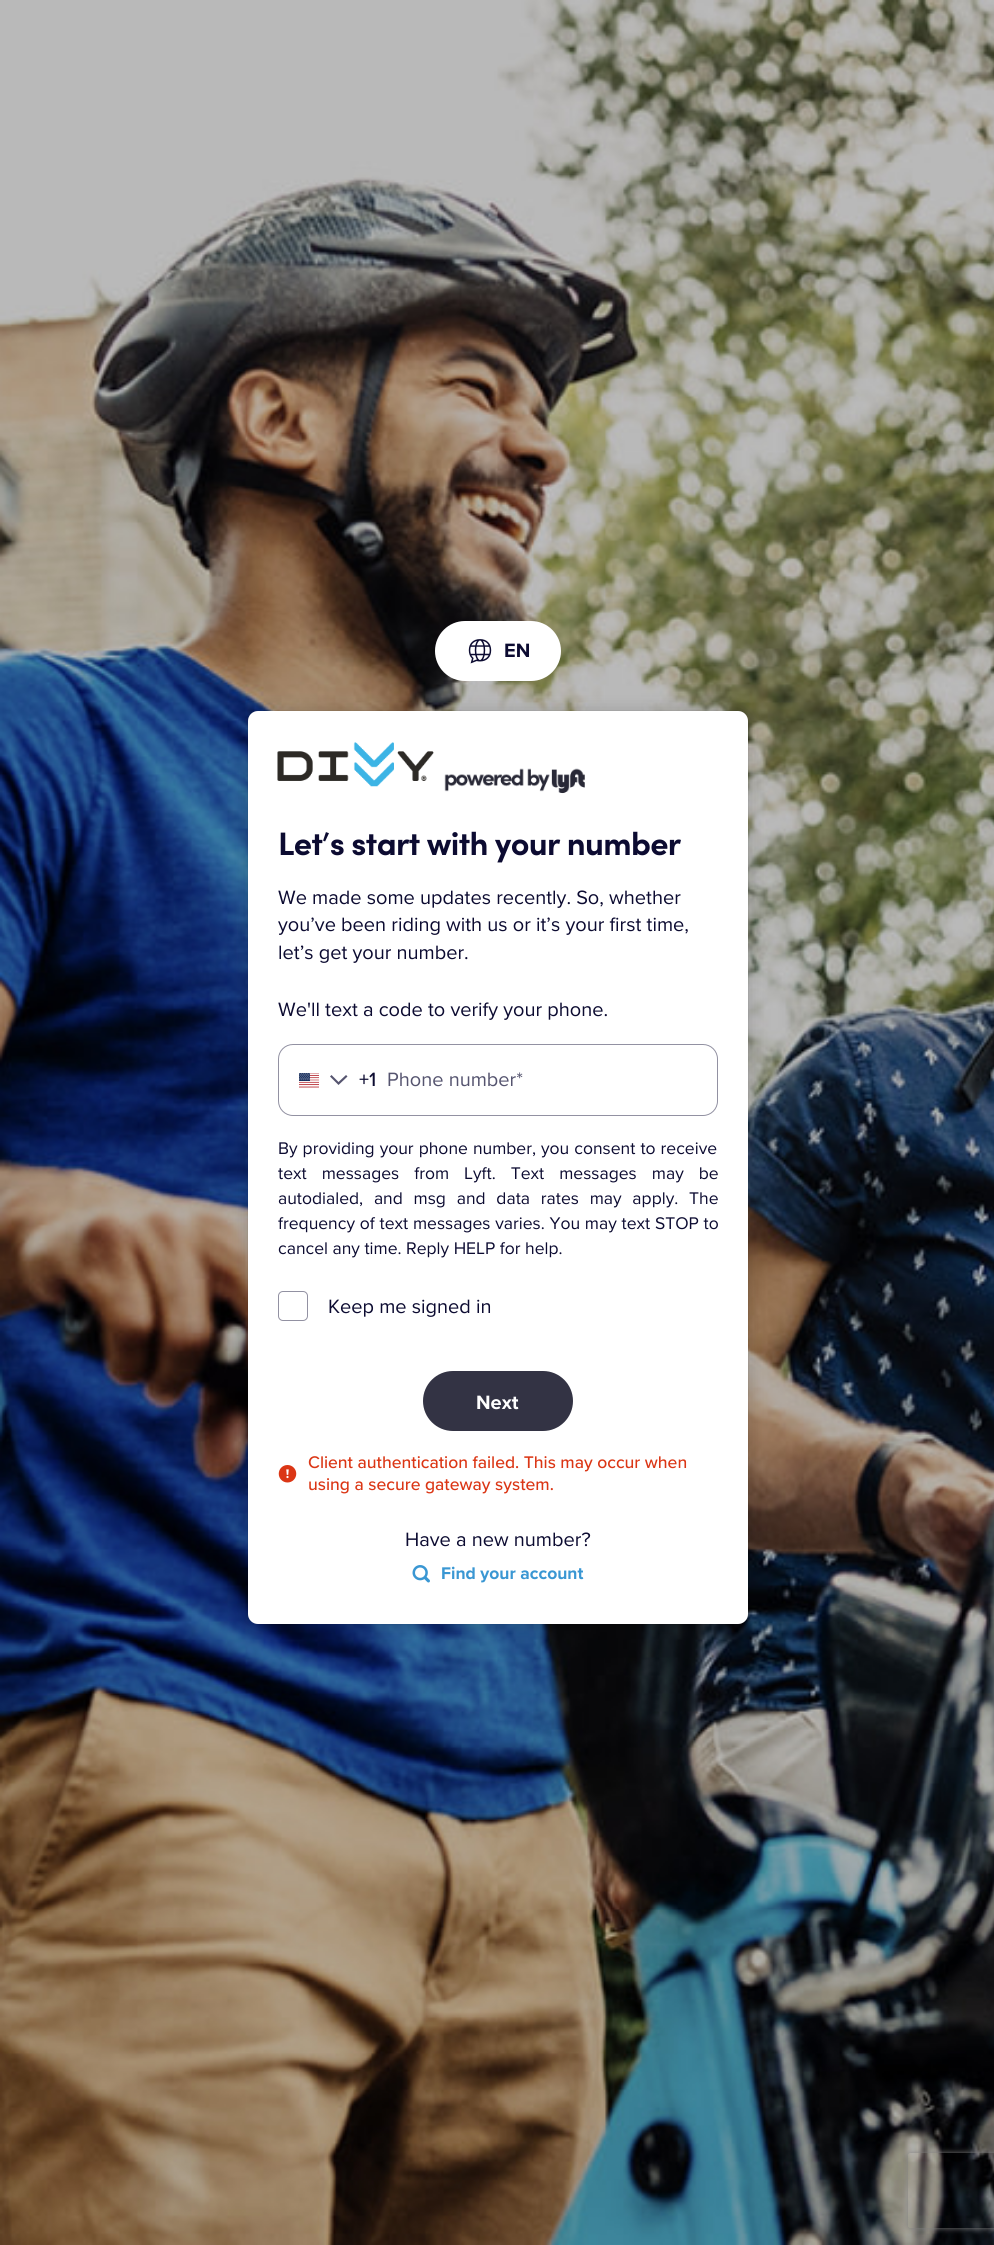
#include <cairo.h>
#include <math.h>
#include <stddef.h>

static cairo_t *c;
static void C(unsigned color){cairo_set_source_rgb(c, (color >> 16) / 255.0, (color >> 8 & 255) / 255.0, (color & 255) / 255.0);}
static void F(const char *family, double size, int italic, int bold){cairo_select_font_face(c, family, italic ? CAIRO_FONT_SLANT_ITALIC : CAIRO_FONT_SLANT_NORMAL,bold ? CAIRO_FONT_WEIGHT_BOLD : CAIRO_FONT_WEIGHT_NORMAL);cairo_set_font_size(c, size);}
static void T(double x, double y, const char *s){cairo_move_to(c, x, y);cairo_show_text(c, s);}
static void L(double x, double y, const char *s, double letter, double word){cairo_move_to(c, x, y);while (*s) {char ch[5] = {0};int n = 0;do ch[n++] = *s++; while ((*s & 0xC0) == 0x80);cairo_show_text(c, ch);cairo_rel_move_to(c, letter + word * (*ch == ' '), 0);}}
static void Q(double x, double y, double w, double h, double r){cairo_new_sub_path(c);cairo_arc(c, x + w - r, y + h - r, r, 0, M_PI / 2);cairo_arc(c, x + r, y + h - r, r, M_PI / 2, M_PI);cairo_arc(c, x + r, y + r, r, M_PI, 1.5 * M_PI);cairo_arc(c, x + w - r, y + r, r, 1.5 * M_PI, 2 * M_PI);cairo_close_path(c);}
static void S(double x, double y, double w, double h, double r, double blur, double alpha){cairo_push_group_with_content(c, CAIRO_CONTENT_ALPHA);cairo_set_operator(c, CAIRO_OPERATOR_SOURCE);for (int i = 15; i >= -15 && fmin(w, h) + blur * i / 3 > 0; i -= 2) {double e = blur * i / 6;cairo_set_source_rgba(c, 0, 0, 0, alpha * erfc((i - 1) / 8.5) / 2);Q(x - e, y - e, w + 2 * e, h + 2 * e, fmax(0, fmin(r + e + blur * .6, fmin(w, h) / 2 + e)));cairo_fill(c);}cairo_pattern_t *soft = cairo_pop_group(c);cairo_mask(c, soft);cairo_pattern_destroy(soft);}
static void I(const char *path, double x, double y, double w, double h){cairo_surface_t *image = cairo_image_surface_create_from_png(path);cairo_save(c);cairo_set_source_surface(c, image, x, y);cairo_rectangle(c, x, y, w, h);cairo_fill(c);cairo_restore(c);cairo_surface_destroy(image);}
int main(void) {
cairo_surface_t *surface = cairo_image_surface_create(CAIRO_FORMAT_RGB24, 994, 2245);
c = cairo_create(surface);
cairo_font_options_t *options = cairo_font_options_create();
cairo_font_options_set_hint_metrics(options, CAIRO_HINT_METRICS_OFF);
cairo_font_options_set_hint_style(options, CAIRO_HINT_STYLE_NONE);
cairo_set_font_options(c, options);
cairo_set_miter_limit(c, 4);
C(0xffffff);
cairo_paint(c);
I("1.png",0,0,994,2245);
C(0xffffff);
Q(435,621,126,60,30);
cairo_fill(c);
I("2.png",468,639,24,25);
F("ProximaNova",20,0,1);
C(0x0c0b31);
T(504,657,"EN");
C(0x000000);
S(248,711,500,913,10,9,.16);
S(248,711,500,913,10,.5,.12);
C(0xffffff);
Q(248,711,500,913,10);
cairo_fill(c);
cairo_set_source_rgba(c,1,1,1,0.15);
Q(248,711,500,913,10);
cairo_fill(c);
I("3.png",277,742,157,45);
I("4.png",444,768,141,26);
F("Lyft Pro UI",32.5,0,1);
C(0x0c0b31);
T(278,855,"Let’s start with your number");
F("ProximaNova",20,0,0);
T(278,904,"We made some updates recently. So, whether");
T(278,931,"you’ve been riding with us or it’s your first time,");
T(278,959,"let’s get your number.");
T(278,1016,"We'll text a code to verify your phone.");
Q(278.5,1044.5,439,71,14.5);
C(0x9291a2);
cairo_set_line_width(c,1);
cairo_stroke(c);
I("5.png",299,1073,20,15);
C(0x55546f);
cairo_new_path(c);
cairo_move_to(c,338.5,1085);
cairo_line_to(c,330,1076.5);
cairo_line_to(c,331.5,1075);
cairo_line_to(c,338.5,1082);
cairo_line_to(c,346,1075);
cairo_line_to(c,347.5,1076.5);
cairo_close_path(c);
cairo_fill(c);
F("Proxima Nova Medium",20,0,0);
C(0x0c0b31);
T(359,1086,"+1");
F("ProximaNova",20,0,0);
C(0x55546f);
T(387,1086,"Phone number*");
F("ProximaNova",17.5,0,0);
C(0x0c0b31);
L(278,1154,"By providing your phone number, you consent to receive",0,.5);
L(278,1179,"text messages from Lyft. Text messages may be",0,10.5);
L(278,1204,"autodialed, and msg and data rates may apply. The",0,6.25);
L(278,1229,"frequency of text messages varies. You may text STOP to",0,.25);
T(278,1254,"cancel any time. Reply HELP for help.");
Q(278.5,1291.5,29,29,4.5);
C(0x9291a2);
cairo_stroke(c);
F("ProximaNova",20,0,0);
C(0x0c0b31);
T(328,1313,"Keep me signed in");
C(0x333344);
Q(423,1371,150,60,30);
cairo_fill(c);
F("ProximaNova",20,0,1);
C(0xffffff);
T(476,1409,"Next");
I("6.png",278,1465,19,18);
F("Proxima Nova Medium",17.5,0,0);
C(0xdb3615);
T(308,1468,"Client authentication failed. This may occur when");
T(308,1490,"using a secure gateway system.");
F("ProximaNova",20,0,0);
C(0x0c0b31);
T(405,1546,"Have a new number?");
I("7.png",412,1565,18,18);
F("ProximaNova",17.5,0,1);
C(0x3a97d3);
T(441,1579,"Find your account");
cairo_save(c);
cairo_set_fill_rule(c,CAIRO_FILL_RULE_EVEN_ODD);
cairo_new_path(c);
cairo_move_to(c,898,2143);
cairo_line_to(c,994,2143);
cairo_line_to(c,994,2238);
cairo_line_to(c,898,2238);
cairo_close_path(c);
cairo_move_to(c,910.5,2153);
cairo_line_to(c,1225.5,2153);
cairo_curve_to(c,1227,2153,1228,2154,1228,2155.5);
cairo_line_to(c,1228,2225.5);
cairo_curve_to(c,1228,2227,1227,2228,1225.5,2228);
cairo_line_to(c,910.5,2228);
cairo_curve_to(c,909,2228,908,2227,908,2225.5);
cairo_line_to(c,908,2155.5);
cairo_curve_to(c,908,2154,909,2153,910.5,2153);
cairo_close_path(c);
cairo_clip(c);
C(0x808080);
S(908,2153,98,75,2.5,3,1);
cairo_restore(c);
cairo_surface_write_to_png(surface, "o.png");
cairo_font_options_destroy(options);
cairo_destroy(c);
cairo_surface_destroy(surface);
return 0;
}
